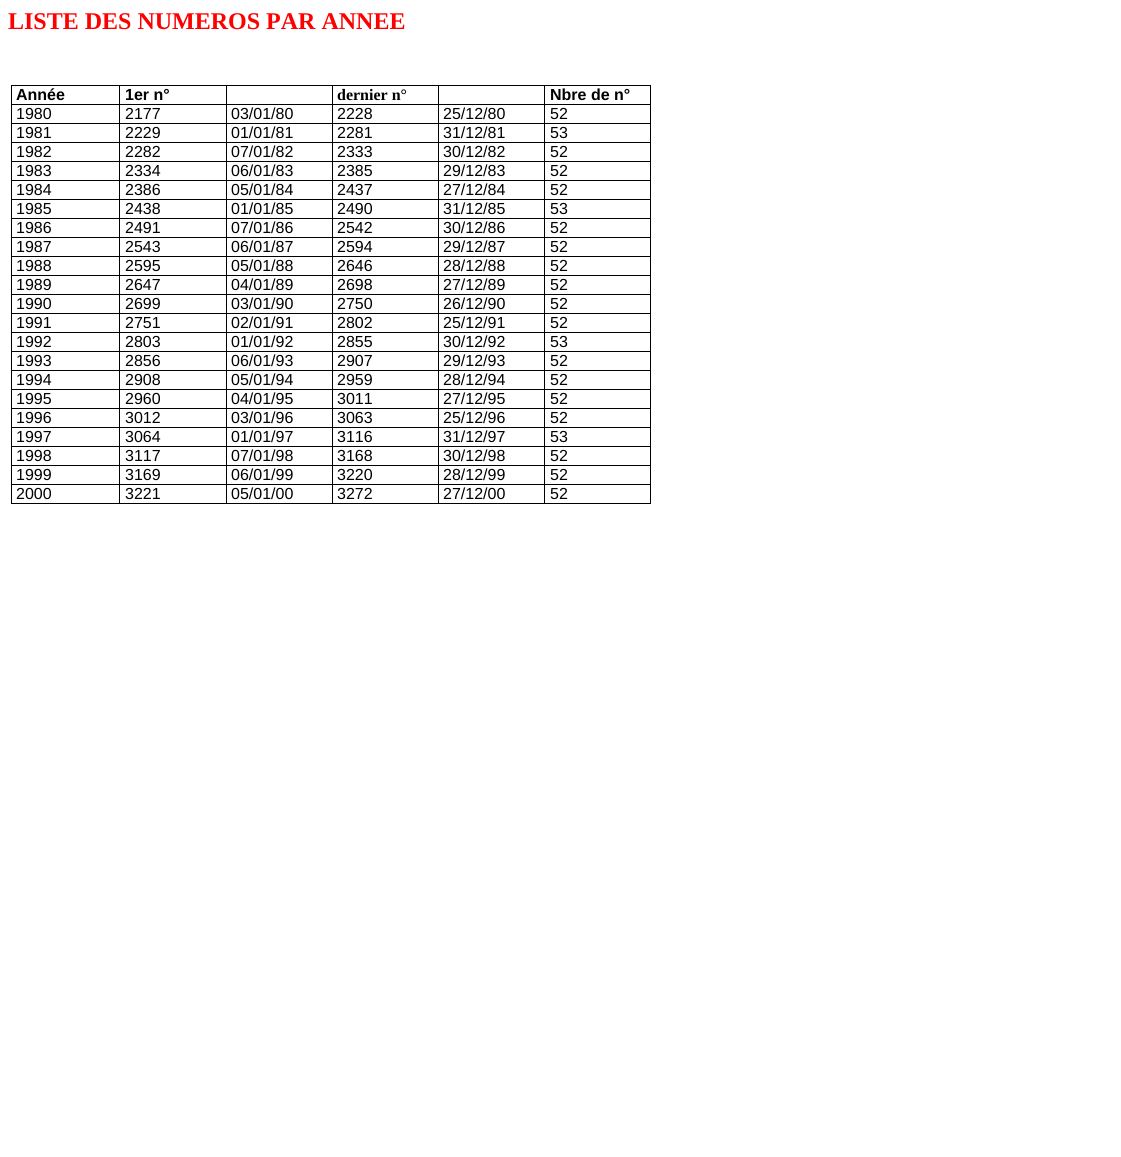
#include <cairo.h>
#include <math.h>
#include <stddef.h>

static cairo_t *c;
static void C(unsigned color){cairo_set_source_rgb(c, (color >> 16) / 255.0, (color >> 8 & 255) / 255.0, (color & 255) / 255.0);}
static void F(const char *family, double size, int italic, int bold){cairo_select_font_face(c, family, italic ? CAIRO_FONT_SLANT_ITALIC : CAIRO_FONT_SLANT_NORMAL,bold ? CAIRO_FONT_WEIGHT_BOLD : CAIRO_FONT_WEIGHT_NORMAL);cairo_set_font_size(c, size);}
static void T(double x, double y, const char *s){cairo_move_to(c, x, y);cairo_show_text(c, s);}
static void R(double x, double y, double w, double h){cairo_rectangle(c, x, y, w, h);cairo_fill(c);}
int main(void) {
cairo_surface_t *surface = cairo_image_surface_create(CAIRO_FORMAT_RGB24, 1121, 1157);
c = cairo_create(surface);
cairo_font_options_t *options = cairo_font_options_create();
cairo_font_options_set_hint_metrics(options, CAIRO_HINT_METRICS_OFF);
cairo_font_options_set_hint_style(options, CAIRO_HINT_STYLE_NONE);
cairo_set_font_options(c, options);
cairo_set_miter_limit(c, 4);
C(0xffffff);
cairo_paint(c);
F("Liberation Serif",24,0,1);
C(0xff0000);
T(8,29,"LISTE DES NUMEROS PAR ANNEE");
C(0x000000);
R(11,85,640,1);
R(11,104,640,1);
R(650,180,1,324);
R(650,123,1,58);
R(650,104,1,20);
R(544,503,107,1);
R(544,484,1,20);
R(544,484,107,1);
R(544,465,1,20);
R(544,465,107,1);
R(544,446,1,20);
R(544,446,107,1);
R(544,427,1,20);
R(544,427,107,1);
R(544,408,1,20);
R(544,408,107,1);
R(544,389,1,20);
R(544,389,107,1);
R(544,370,1,20);
R(544,370,107,1);
R(544,351,1,20);
R(544,351,107,1);
R(544,332,1,20);
R(544,332,107,1);
R(544,313,1,20);
R(544,313,107,1);
R(544,294,1,20);
R(544,294,107,1);
R(544,275,1,20);
R(544,275,107,1);
R(544,256,1,20);
R(544,256,107,1);
R(544,237,1,20);
R(544,237,107,1);
R(544,218,1,20);
R(544,218,107,1);
R(544,199,1,20);
R(544,199,107,1);
R(544,180,1,20);
R(544,180,107,1);
R(544,161,1,20);
R(544,161,107,1);
R(544,142,1,20);
R(544,142,107,1);
R(544,123,1,20);
R(544,123,107,1);
R(544,104,1,20);
R(438,503,107,1);
R(438,484,1,20);
R(438,484,107,1);
R(438,465,1,20);
R(438,465,107,1);
R(438,446,1,20);
R(438,446,107,1);
R(438,427,1,20);
R(438,427,107,1);
R(438,408,1,20);
R(438,408,107,1);
R(438,389,1,20);
R(438,389,107,1);
R(438,370,1,20);
R(438,370,107,1);
R(438,351,1,20);
R(438,351,107,1);
R(438,332,1,20);
R(438,332,107,1);
R(438,313,1,20);
R(438,313,107,1);
R(438,294,1,20);
R(438,294,107,1);
R(438,275,1,20);
R(438,275,107,1);
R(438,256,1,20);
R(438,256,107,1);
R(438,237,1,20);
R(438,237,107,1);
R(438,218,1,20);
R(438,218,107,1);
R(438,199,1,20);
R(438,199,107,1);
R(438,180,1,20);
R(438,180,107,1);
R(438,161,1,20);
R(438,161,107,1);
R(438,142,1,20);
R(438,142,107,1);
R(438,123,1,20);
R(438,123,107,1);
R(438,104,1,20);
R(332,503,107,1);
R(332,484,1,20);
R(332,484,107,1);
R(332,465,1,20);
R(332,465,107,1);
R(332,446,1,20);
R(332,446,107,1);
R(332,427,1,20);
R(332,427,107,1);
R(332,408,1,20);
R(332,408,107,1);
R(332,389,1,20);
R(332,389,107,1);
R(332,370,1,20);
R(332,370,107,1);
R(332,351,1,20);
R(332,351,107,1);
R(332,332,1,20);
R(332,332,107,1);
R(332,313,1,20);
R(332,313,107,1);
R(332,294,1,20);
R(332,294,107,1);
R(332,275,1,20);
R(332,275,107,1);
R(332,256,1,20);
R(332,256,107,1);
R(332,237,1,20);
R(332,237,107,1);
R(332,218,1,20);
R(332,218,107,1);
R(332,199,1,20);
R(332,199,107,1);
R(332,180,1,20);
R(332,180,107,1);
R(332,161,1,20);
R(332,161,107,1);
R(332,142,1,20);
R(332,142,107,1);
R(332,123,1,20);
R(332,123,107,1);
R(332,104,1,20);
R(226,503,107,1);
R(226,484,1,20);
R(226,484,107,1);
R(226,465,1,20);
R(226,465,107,1);
R(226,446,1,20);
R(226,446,107,1);
R(226,427,1,20);
R(226,427,107,1);
R(226,408,1,20);
R(226,408,107,1);
R(226,389,1,20);
R(226,389,107,1);
R(226,370,1,20);
R(226,370,107,1);
R(226,351,1,20);
R(226,351,107,1);
R(226,332,1,20);
R(226,332,107,1);
R(226,313,1,20);
R(226,313,107,1);
R(226,294,1,20);
R(226,294,107,1);
R(226,275,1,20);
R(226,275,107,1);
R(226,256,1,20);
R(226,256,107,1);
R(226,237,1,20);
R(226,237,107,1);
R(226,218,1,20);
R(226,218,107,1);
R(226,199,1,20);
R(226,199,107,1);
R(226,180,1,20);
R(226,180,107,1);
R(226,161,1,20);
R(226,161,107,1);
R(226,142,1,20);
R(226,142,107,1);
R(226,123,1,20);
R(226,123,107,1);
R(226,104,1,20);
R(119,503,108,1);
R(119,484,1,20);
R(119,484,108,1);
R(119,465,1,20);
R(119,465,108,1);
R(119,446,1,20);
R(119,446,108,1);
R(119,427,1,20);
R(119,427,108,1);
R(119,408,1,20);
R(119,408,108,1);
R(119,389,1,20);
R(119,389,108,1);
R(119,370,1,20);
R(119,370,108,1);
R(119,351,1,20);
R(119,351,108,1);
R(119,332,1,20);
R(119,332,108,1);
R(119,313,1,20);
R(119,313,108,1);
R(119,294,1,20);
R(119,294,108,1);
R(119,275,1,20);
R(119,275,108,1);
R(119,256,1,20);
R(119,256,108,1);
R(119,237,1,20);
R(119,237,108,1);
R(119,218,1,20);
R(119,218,108,1);
R(119,199,1,20);
R(119,199,108,1);
R(119,180,1,20);
R(119,180,108,1);
R(119,161,1,20);
R(119,161,108,1);
R(119,142,1,20);
R(119,142,108,1);
R(119,123,1,20);
R(119,123,108,1);
R(119,104,1,20);
R(119,85,1,20);
R(11,503,109,1);
R(11,484,1,20);
R(11,484,109,1);
R(11,465,1,20);
R(11,465,109,1);
R(11,446,1,20);
R(11,446,109,1);
R(11,427,1,20);
R(11,427,109,1);
R(11,408,1,20);
R(11,408,109,1);
R(11,389,1,20);
R(11,389,109,1);
R(11,370,1,20);
R(11,370,109,1);
R(11,351,1,20);
R(11,351,109,1);
R(11,332,1,20);
R(11,332,109,1);
R(11,313,1,20);
R(11,313,109,1);
R(11,294,1,20);
R(11,294,109,1);
R(11,275,1,20);
R(11,275,109,1);
R(11,256,1,20);
R(11,256,109,1);
R(11,237,1,20);
R(11,237,109,1);
R(11,218,1,20);
R(11,218,109,1);
R(11,199,1,20);
R(11,199,109,1);
R(11,180,1,20);
R(11,180,109,1);
R(11,161,1,20);
R(11,161,109,1);
R(11,142,1,20);
R(11,142,109,1);
R(11,123,1,20);
R(11,123,109,1);
R(11,104,1,20);
R(11,85,1,20);
F("Liberation Sans",16,0,1);
T(16,100,"Année");
R(226,85,1,20);
T(125,100,"1er n°");
R(332,85,1,20);
R(438,85,1,20);
F("Liberation Serif",16,0,1);
T(337,100,"dernier n°");
R(544,85,1,20);
R(650,85,1,20);
F("Liberation Sans",16,0,1);
T(550,100,"Nbre de n°");
F("Liberation Sans",16,0,0);
T(16,119,"1980");
T(125,119,"2177");
T(231,119,"03/01/80");
T(337,119,"2228");
T(443,119,"25/12/80");
T(550,119,"52");
T(16,138,"1981");
T(125,138,"2229");
T(231,138,"01/01/81");
T(337,138,"2281");
T(443,138,"31/12/81");
T(550,138,"53");
T(16,157,"1982");
T(125,157,"2282");
T(231,157,"07/01/82");
T(337,157,"2333");
T(443,157,"30/12/82");
T(550,157,"52");
T(16,176,"1983");
T(125,176,"2334");
T(231,176,"06/01/83");
T(337,176,"2385");
T(443,176,"29/12/83");
T(550,176,"52");
T(16,195,"1984");
T(125,195,"2386");
T(231,195,"05/01/84");
T(337,195,"2437");
T(443,195,"27/12/84");
T(550,195,"52");
T(16,214,"1985");
T(125,214,"2438");
T(231,214,"01/01/85");
T(337,214,"2490");
T(443,214,"31/12/85");
T(550,214,"53");
T(16,233,"1986");
T(125,233,"2491");
T(231,233,"07/01/86");
T(337,233,"2542");
T(443,233,"30/12/86");
T(550,233,"52");
T(16,252,"1987");
T(125,252,"2543");
T(231,252,"06/01/87");
T(337,252,"2594");
T(443,252,"29/12/87");
T(550,252,"52");
T(16,271,"1988");
T(125,271,"2595");
T(231,271,"05/01/88");
T(337,271,"2646");
T(443,271,"28/12/88");
T(550,271,"52");
T(16,290,"1989");
T(125,290,"2647");
T(231,290,"04/01/89");
T(337,290,"2698");
T(443,290,"27/12/89");
T(550,290,"52");
T(16,309,"1990");
T(125,309,"2699");
T(231,309,"03/01/90");
T(337,309,"2750");
T(443,309,"26/12/90");
T(550,309,"52");
T(16,328,"1991");
T(125,328,"2751");
T(231,328,"02/01/91");
T(337,328,"2802");
T(443,328,"25/12/91");
T(550,328,"52");
T(16,347,"1992");
T(125,347,"2803");
T(231,347,"01/01/92");
T(337,347,"2855");
T(443,347,"30/12/92");
T(550,347,"53");
T(16,366,"1993");
T(125,366,"2856");
T(231,366,"06/01/93");
T(337,366,"2907");
T(443,366,"29/12/93");
T(550,366,"52");
T(16,385,"1994");
T(125,385,"2908");
T(231,385,"05/01/94");
T(337,385,"2959");
T(443,385,"28/12/94");
T(550,385,"52");
T(16,404,"1995");
T(125,404,"2960");
T(231,404,"04/01/95");
T(337,404,"3011");
T(443,404,"27/12/95");
T(550,404,"52");
T(16,423,"1996");
T(125,423,"3012");
T(231,423,"03/01/96");
T(337,423,"3063");
T(443,423,"25/12/96");
T(550,423,"52");
T(16,442,"1997");
T(125,442,"3064");
T(231,442,"01/01/97");
T(337,442,"3116");
T(443,442,"31/12/97");
T(550,442,"53");
T(16,461,"1998");
T(125,461,"3117");
T(231,461,"07/01/98");
T(337,461,"3168");
T(443,461,"30/12/98");
T(550,461,"52");
T(16,480,"1999");
T(125,480,"3169");
T(231,480,"06/01/99");
T(337,480,"3220");
T(443,480,"28/12/99");
T(550,480,"52");
T(16,499,"2000");
T(125,499,"3221");
T(231,499,"05/01/00");
T(337,499,"3272");
T(443,499,"27/12/00");
T(550,499,"52");
cairo_surface_write_to_png(surface, "o.png");
cairo_font_options_destroy(options);
cairo_destroy(c);
cairo_surface_destroy(surface);
return 0;
}
